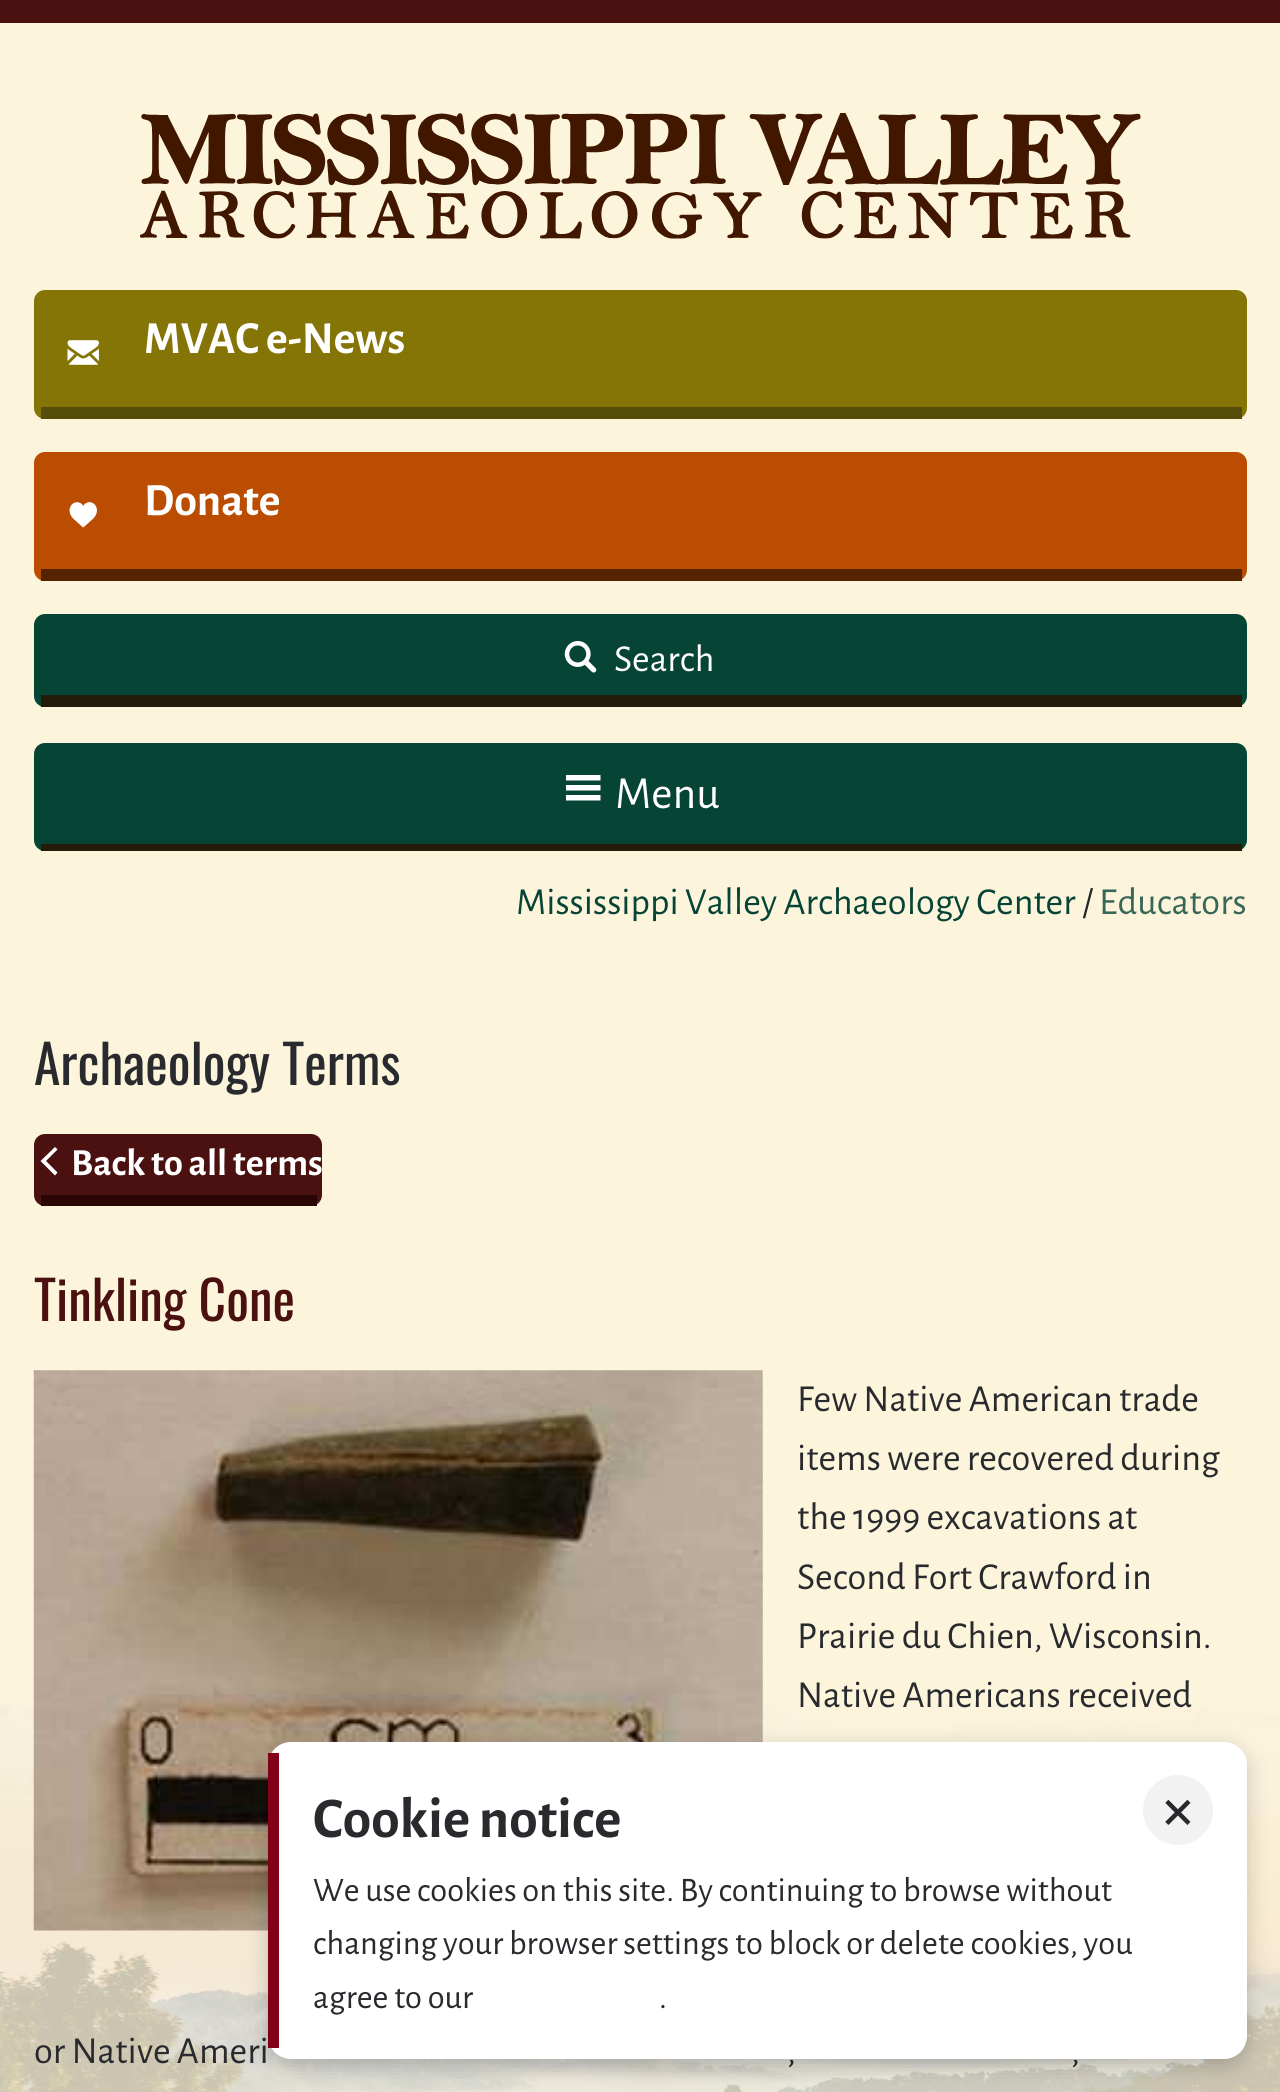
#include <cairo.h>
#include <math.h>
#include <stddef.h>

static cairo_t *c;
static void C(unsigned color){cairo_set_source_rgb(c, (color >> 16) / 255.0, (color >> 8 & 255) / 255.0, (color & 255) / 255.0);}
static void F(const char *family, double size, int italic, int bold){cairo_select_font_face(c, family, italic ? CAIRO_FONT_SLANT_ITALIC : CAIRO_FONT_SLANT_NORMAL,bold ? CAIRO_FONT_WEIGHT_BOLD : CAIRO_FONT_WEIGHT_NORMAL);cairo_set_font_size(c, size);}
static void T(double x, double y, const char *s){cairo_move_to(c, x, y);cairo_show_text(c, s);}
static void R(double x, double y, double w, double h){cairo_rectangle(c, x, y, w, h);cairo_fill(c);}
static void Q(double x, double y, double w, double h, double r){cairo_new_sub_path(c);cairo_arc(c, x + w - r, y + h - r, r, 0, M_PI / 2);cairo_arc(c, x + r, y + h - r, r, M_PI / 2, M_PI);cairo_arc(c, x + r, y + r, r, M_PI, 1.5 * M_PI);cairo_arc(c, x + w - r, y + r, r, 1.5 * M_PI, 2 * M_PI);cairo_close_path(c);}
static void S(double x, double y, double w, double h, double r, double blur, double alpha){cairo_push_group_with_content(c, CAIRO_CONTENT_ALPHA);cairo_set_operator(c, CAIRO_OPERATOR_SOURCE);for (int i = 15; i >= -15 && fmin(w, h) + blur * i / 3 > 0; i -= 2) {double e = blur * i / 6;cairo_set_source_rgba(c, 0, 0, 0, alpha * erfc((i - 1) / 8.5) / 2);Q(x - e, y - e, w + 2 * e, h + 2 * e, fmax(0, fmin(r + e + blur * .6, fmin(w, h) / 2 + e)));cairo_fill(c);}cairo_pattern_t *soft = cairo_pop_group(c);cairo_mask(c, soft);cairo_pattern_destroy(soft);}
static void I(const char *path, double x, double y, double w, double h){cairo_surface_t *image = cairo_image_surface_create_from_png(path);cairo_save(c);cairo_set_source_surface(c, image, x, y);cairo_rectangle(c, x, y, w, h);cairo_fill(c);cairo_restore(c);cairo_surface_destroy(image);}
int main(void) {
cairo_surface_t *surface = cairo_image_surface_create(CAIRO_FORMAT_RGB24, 1280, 2092);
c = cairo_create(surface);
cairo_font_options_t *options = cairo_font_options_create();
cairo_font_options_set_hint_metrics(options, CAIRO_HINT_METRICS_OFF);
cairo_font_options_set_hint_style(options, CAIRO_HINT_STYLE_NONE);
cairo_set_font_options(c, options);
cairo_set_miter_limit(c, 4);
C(0xfcf5dc);
cairo_paint(c);
C(0x4a1110);
R(0,0,1280,23);
I("1.png",140,113,1001,126);
C(0x847506);
Q(34,290,1213,129,11);
cairo_fill(c);
C(0x574d0a);
R(41,407,1201,12);
I("2.png",67,340,32,25);
F("Alegreya Sans",46,0,1);
C(0xffffff);
T(144,353,"MVAC e-News");
C(0xbb4d02);
Q(34,452,1213,129,11);
cairo_fill(c);
C(0x562301);
R(41,569,1201,12);
I("3.png",69,502,28,26);
C(0xffffff);
T(144,515,"Donate");
C(0x064435);
Q(34,614,1213,93,11);
cairo_fill(c);
C(0x241b09);
R(41,695,1201,12);
I("4.png",564,641,33,32);
F("Alegreya Sans",38.25,0,0);
C(0xffffff);
T(614,671,"Search");
C(0x064435);
Q(34,743,1213,108,11);
cairo_fill(c);
C(0x241b09);
R(41,844,1201,7);
C(0xffffff);
cairo_new_path(c);
cairo_move_to(c,566,785);
cairo_line_to(c,600.5,785);
cairo_line_to(c,600.5,790.5);
cairo_line_to(c,566,790.5);
cairo_close_path(c);
cairo_move_to(c,566,795);
cairo_line_to(c,600.5,795);
cairo_line_to(c,600.5,800.5);
cairo_line_to(c,566,800.5);
cairo_close_path(c);
cairo_move_to(c,566,775);
cairo_line_to(c,600.5,775);
cairo_line_to(c,600.5,780.5);
cairo_line_to(c,566,780.5);
cairo_close_path(c);
cairo_fill(c);
F("Alegreya Sans",46,0,0);
T(615,808,"Menu");
I("5.png",0,1704,1280,388);
F("Alegreya Sans",38.25,0,0);
C(0x064435);
T(516,914,"Mississippi Valley Archaeology Center");
C(0x282a2e);
T(1082,914,"/");
C(0x376756);
T(1099,914,"Educators");
F("Oswald",53.5,0,0);
C(0x282a2e);
T(34,1085,"Archaeology Terms");
C(0x4a1110);
Q(34,1134,288,72,11);
cairo_fill(c);
C(0x290504);
R(41,1195,276,11);
cairo_save(c);
cairo_new_path(c);
cairo_move_to(c,45,1134);
cairo_line_to(c,310.5,1134);
cairo_curve_to(c,316.5,1134,322,1139,322,1145);
cairo_line_to(c,322,1195);
cairo_line_to(c,34,1195);
cairo_line_to(c,34,1145);
cairo_curve_to(c,34,1139,39,1134,45,1134);
cairo_close_path(c);
cairo_clip(c);
F("Alegreya Sans",38.25,0,1);
C(0xffffff);
T(71,1175,"Back to all terms");
cairo_restore(c);
C(0xffffff);
cairo_new_path(c);
cairo_move_to(c,57.5,1172.5);
cairo_line_to(c,46,1161);
cairo_line_to(c,57.5,1149.5);
cairo_line_to(c,55,1147);
cairo_line_to(c,40.5,1161);
cairo_line_to(c,55,1175.5);
cairo_close_path(c);
cairo_fill(c);
C(0x4a1110);
T(34,1321,"Tinkling Cone");
I("6.png",33,1370,730,561);
F("Alegreya Sans",38.25,0,0);
C(0x282a2e);
T(797,1411,"Few Native American trade");
T(797,1470,"items were recovered during");
T(797,1529,"the 1999 excavations at");
T(797,1589,"Second Fort Crawford in");
T(797,1648,"Prairie du Chien, Wisconsin.");
T(797,1707,"Native Americans received");
T(34,2063,"or Native Ameri");
T(787,2063,",");
T(1071,2063,",");
C(0x000000);
S(268,1748,979,318,23,11,.2);
C(0xffffff);
Q(268,1742,979,317,23);
cairo_fill(c);
C(0x830019);
R(268,1753,11,295);
F("Alegreya Sans",57.5,0,1);
C(0x282a2e);
T(313,1837,"Cookie notice");
C(0xf2f2f3);
cairo_new_path(c);
cairo_arc(c,1178,1810,35,0,2 * M_PI);
cairo_fill(c);
I("7.png",1165,1799,26,26);
F("Alegreya Sans",34.4,0,0);
C(0x282a2e);
T(313,1901,"We use cookies on this site. By continuing to browse without");
T(313,1954,"changing your browser settings to block or delete cookies, you");
T(313,2008,"agree to our");
T(659,2008,".");
cairo_surface_write_to_png(surface, "o.png");
cairo_font_options_destroy(options);
cairo_destroy(c);
cairo_surface_destroy(surface);
return 0;
}
